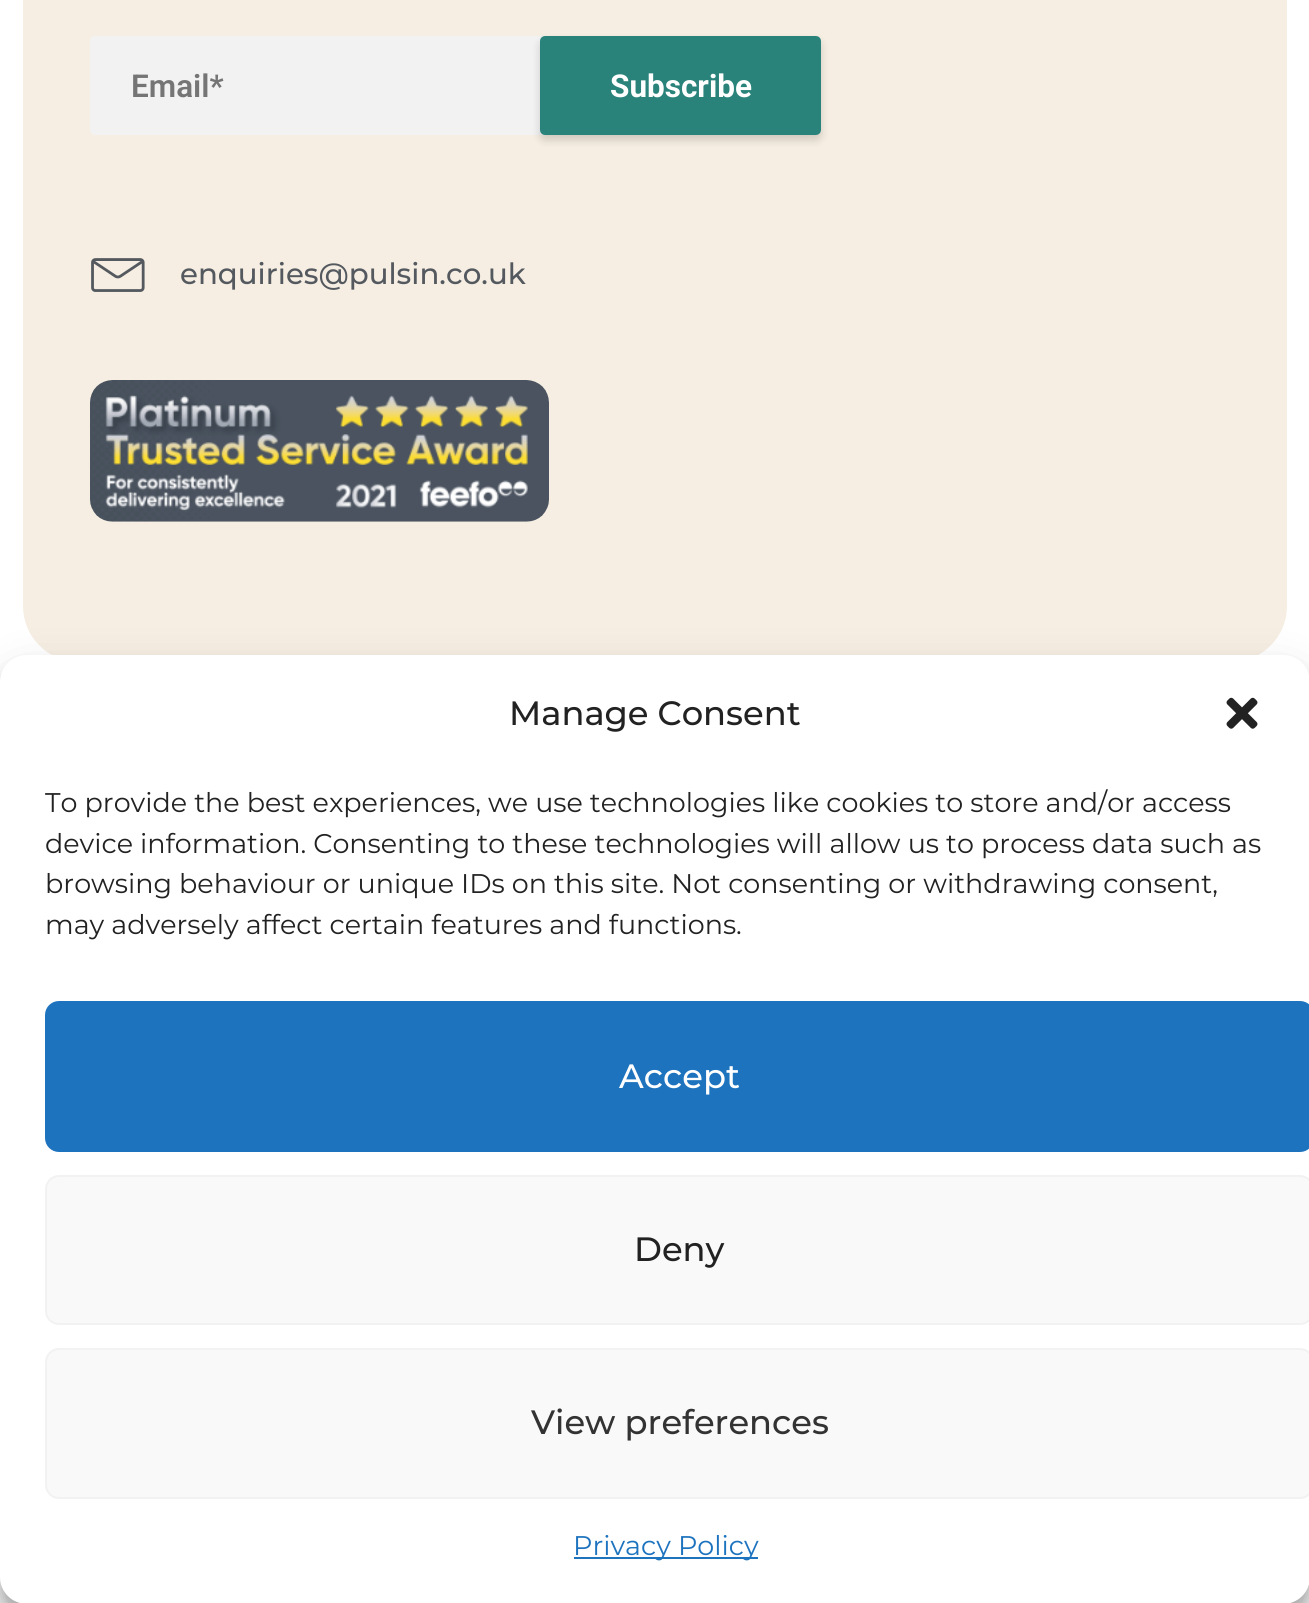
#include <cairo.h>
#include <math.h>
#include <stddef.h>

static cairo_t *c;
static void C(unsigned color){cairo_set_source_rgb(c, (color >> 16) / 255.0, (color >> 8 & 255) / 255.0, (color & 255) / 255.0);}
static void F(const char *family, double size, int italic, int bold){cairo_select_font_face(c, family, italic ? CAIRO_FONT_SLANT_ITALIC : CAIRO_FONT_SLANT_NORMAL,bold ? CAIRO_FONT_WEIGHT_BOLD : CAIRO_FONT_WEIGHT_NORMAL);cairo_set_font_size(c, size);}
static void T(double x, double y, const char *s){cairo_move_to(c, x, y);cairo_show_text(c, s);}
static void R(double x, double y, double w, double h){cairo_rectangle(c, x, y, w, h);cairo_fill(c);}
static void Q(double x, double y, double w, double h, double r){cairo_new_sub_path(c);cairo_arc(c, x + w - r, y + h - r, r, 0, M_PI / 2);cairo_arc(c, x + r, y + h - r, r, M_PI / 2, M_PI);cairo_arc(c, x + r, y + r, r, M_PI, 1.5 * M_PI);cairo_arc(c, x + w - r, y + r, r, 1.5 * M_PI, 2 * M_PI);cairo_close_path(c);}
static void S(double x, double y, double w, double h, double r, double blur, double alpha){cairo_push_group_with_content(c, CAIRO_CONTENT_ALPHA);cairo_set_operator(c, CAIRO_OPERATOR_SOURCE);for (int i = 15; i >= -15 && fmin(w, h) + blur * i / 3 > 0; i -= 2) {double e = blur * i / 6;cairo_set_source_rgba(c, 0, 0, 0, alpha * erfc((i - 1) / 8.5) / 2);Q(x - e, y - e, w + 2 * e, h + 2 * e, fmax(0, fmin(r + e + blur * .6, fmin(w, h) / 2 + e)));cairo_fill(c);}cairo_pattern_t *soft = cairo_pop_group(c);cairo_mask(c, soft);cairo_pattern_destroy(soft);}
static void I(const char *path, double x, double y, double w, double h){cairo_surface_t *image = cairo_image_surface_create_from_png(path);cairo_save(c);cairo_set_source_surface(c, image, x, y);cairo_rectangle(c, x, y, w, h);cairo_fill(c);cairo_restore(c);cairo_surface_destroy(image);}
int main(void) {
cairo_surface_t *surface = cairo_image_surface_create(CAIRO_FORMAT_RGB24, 1309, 1603);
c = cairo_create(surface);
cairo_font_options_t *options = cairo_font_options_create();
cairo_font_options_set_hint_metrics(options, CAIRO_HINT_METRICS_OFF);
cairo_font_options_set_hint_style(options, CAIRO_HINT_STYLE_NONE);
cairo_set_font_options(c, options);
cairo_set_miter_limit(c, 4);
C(0xffffff);
cairo_paint(c);
C(0xf6eee2);
Q(23,-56,1264,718,56);
cairo_fill(c);
C(0xf2f2f2);
Q(90,36,731,99,5);
cairo_fill(c);
F("Roboto SemiBold",31.5,0,0);
C(0x757575);
T(131,97,"Email*");
C(0x000000);
S(540,41,281,99,5,4.5,.16);
C(0x2a837b);
Q(542.5,38.5,276,94,2.5);
cairo_fill_preserve(c);
cairo_set_line_width(c,5);
cairo_stroke(c);
F("Roboto",31.5,0,1);
C(0xffffff);
T(610,97,"Subscribe");
I("1.png",91,258,54,34);
F("Montserrat Medium",29.25,0,0);
C(0x54595f);
T(180,284,"enquiries@pulsin.co.uk");
I("2.png",90,380,459,142);
C(0x000000);
S(0,668,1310,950,27,7,.23);
S(0,677,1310,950,27,22.5,.19);
C(0xffffff);
Q(0,655,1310,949,27);
cairo_fill(c);
F("Montserrat Medium",33.75,0,0);
C(0x222222);
T(509,725,"Manage Consent");
I("3.png",1226,697,32,32);
F("Montserrat",27,0,0);
T(45,812,"To provide the best experiences, we use technologies like cookies to store and/or access");
T(45,853,"device information. Consenting to these technologies will allow us to process data such as");
T(45,893,"browsing behaviour or unique IDs on this site. Not consenting or withdrawing consent,");
T(45,934,"may adversely affect certain features and functions.");
C(0x1e73be);
Q(46,1002,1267,149,13);
cairo_fill_preserve(c);
cairo_set_line_width(c,2);
cairo_stroke(c);
F("Montserrat Medium",33.75,0,0);
C(0xffffff);
T(619,1088,"Accept");
C(0xf9f9f9);
Q(46,1176,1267,148,13);
cairo_fill_preserve(c);
C(0xf2f2f2);
cairo_stroke(c);
C(0x222222);
T(634,1261,"Deny");
C(0xf9f9f9);
Q(46,1349,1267,149,13);
cairo_fill_preserve(c);
C(0xf2f2f2);
cairo_stroke(c);
C(0x333333);
T(531,1434,"View preferences");
C(0x1e73be);
R(574,1557,184,2);
F("Montserrat",27,0,0);
T(573,1555,"Privacy Policy");
cairo_surface_write_to_png(surface, "o.png");
cairo_font_options_destroy(options);
cairo_destroy(c);
cairo_surface_destroy(surface);
return 0;
}
